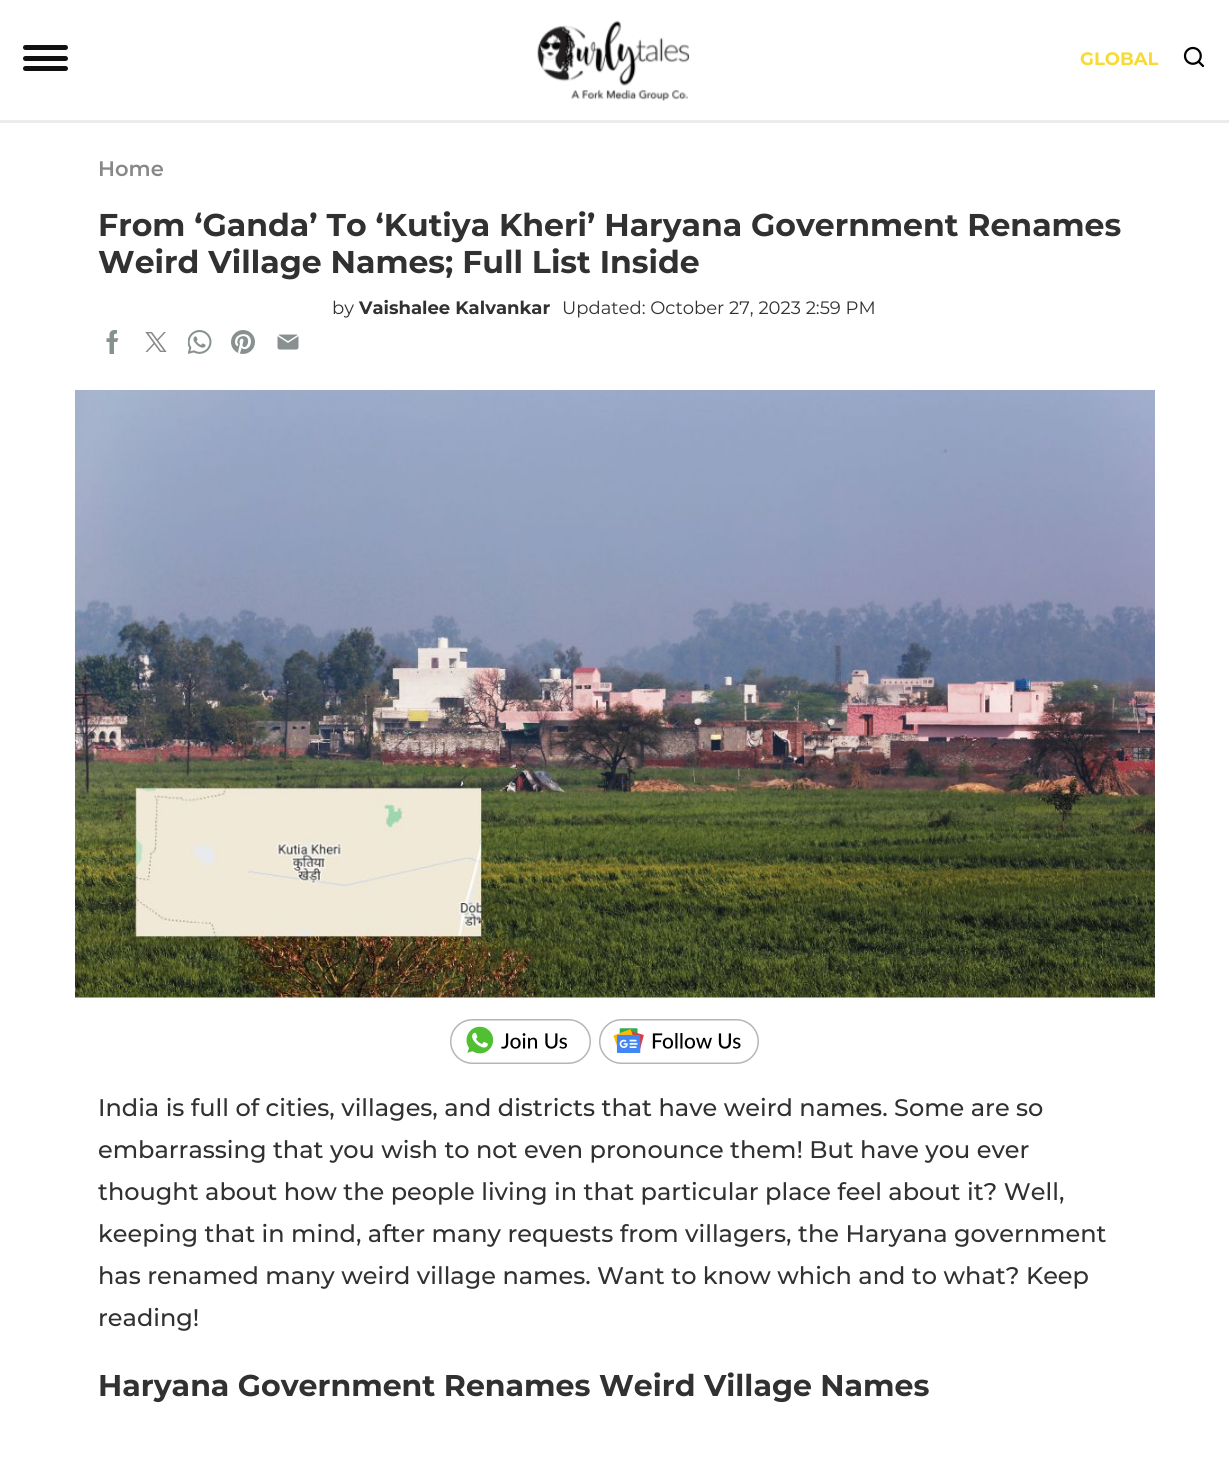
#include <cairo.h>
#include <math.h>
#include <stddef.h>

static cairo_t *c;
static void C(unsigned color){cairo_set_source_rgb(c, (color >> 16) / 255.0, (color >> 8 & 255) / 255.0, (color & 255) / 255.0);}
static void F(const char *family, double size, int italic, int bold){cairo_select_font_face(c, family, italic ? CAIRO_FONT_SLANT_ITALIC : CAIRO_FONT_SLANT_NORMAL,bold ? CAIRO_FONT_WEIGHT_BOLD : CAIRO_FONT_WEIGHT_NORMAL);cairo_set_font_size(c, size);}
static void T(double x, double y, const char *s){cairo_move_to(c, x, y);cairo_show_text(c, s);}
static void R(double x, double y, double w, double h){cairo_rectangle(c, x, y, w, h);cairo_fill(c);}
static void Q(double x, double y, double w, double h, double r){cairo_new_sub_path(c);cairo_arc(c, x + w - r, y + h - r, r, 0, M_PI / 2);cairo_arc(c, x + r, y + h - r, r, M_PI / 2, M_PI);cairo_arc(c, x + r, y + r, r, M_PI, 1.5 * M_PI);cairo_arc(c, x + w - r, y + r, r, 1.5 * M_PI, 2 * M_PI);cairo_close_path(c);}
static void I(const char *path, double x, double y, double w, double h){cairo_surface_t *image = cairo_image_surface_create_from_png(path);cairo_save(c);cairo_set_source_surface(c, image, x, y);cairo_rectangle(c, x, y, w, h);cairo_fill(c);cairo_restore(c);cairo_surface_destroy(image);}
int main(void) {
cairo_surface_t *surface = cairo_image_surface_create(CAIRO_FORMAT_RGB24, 1229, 1473);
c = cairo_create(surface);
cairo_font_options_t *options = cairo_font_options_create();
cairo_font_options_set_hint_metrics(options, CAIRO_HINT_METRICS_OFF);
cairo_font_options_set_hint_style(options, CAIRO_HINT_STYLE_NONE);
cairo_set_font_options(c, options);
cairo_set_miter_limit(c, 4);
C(0xffffff);
cairo_paint(c);
C(0xececec);
R(0,120,1229,3);
C(0x111111);
Q(23,45,45,5,2.5);
cairo_fill(c);
Q(23,56,45,5,2.5);
cairo_fill(c);
Q(23,66,45,5,2.5);
cairo_fill(c);
I("1.png",537,20,153,81);
F("Montserrat",18,0,1);
C(0xf7db32);
T(1080,65,"GLOBAL");
I("2.png",1183,46,22,22);
F("Montserrat SemiBold",21,0,0);
C(0x888888);
T(98,176,"Home");
F("Montserrat",31.5,0,1);
C(0x313131);
T(98,236,"From ‘Ganda’ To ‘Kutiya Kheri’ Haryana Government Renames");
T(98,273,"Weird Village Names; Full List Inside");
F("Montserrat",18,0,0);
T(332,314,"by");
F("Montserrat",18,0,1);
T(359,314,"Vaishalee Kalvankar");
F("Montserrat",18,0,0);
T(562,314,"Updated: October 27, 2023 2:59 PM");
I("3.png",106,330,13,24);
I("4.png",145,332,22,20);
I("5.png",188,330,24,24);
I("6.png",231,330,24,24);
I("7.png",277,334,22,16);
I("8.png",75,390,1080,608);
I("9.png",450,1019,141,45);
I("10.png",599,1019,160,45);
F("Montserrat Medium",24,0,0);
T(98,1116,"India is full of cities, villages, and districts that have weird names. Some are so");
T(98,1158,"embarrassing that you wish to not even pronounce them! But have you ever");
T(98,1200,"thought about how the people living in that particular place feel about it? Well,");
T(98,1242,"keeping that in mind, after many requests from villagers, the Haryana government");
T(98,1284,"has renamed many weird village names. Want to know which and to what? Keep");
T(98,1326,"reading!");
F("Montserrat",30,0,1);
T(98,1396,"Haryana Government Renames Weird Village Names");
cairo_surface_write_to_png(surface, "o.png");
cairo_font_options_destroy(options);
cairo_destroy(c);
cairo_surface_destroy(surface);
return 0;
}
